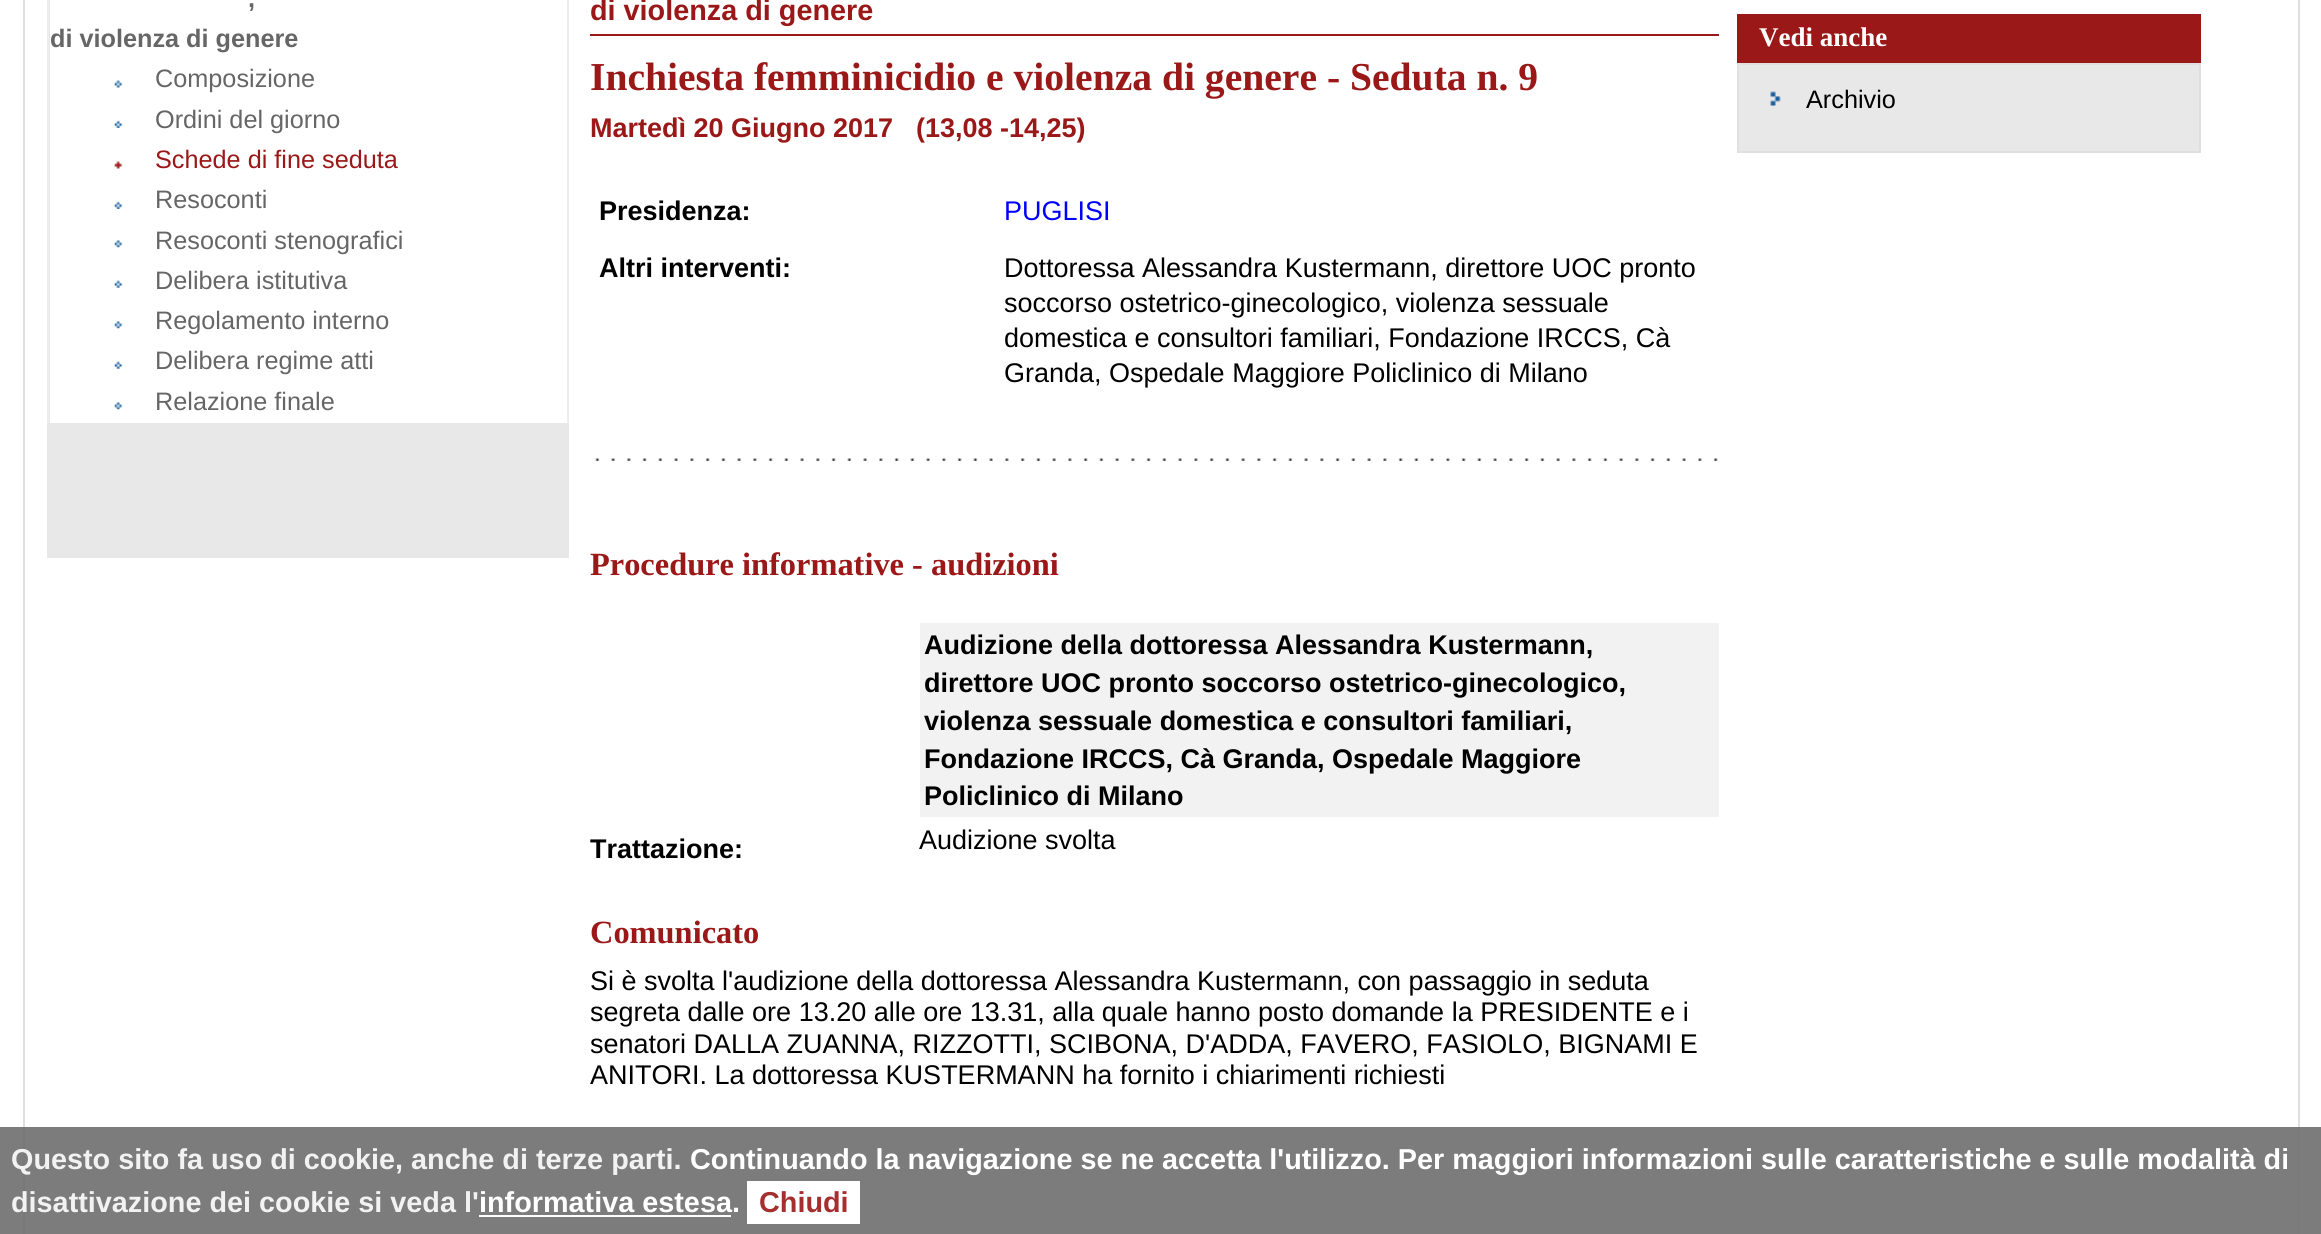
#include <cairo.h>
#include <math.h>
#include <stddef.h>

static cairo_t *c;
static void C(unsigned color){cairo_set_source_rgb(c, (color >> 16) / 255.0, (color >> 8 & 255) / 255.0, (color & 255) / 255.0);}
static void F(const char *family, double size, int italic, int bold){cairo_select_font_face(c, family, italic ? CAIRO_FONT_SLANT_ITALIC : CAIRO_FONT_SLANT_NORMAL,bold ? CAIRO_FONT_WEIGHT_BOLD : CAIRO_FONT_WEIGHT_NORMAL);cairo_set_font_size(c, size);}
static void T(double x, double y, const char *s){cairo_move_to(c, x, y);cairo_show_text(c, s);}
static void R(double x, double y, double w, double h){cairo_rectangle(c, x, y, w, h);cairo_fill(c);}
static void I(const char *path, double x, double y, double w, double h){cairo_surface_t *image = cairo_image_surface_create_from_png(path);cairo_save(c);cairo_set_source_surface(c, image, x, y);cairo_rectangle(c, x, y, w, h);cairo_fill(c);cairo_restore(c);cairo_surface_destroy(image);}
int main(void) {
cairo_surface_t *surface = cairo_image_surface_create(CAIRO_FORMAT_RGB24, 2321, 1234);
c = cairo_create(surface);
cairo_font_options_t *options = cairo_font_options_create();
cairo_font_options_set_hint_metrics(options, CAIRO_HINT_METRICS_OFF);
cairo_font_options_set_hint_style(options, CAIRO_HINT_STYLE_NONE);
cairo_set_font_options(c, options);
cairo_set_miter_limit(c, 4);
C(0xffffff);
cairo_paint(c);
cairo_rectangle(c,24,-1,2275,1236);
C(0xdfdfdf);
cairo_stroke(c);
C(0xe8e8e8);
R(47,0,522,558);
C(0xededed);
R(567,0,2,423);
R(47,0,2,423);
C(0xffffff);
R(50,0,517,423);
F("Liberation Sans",25.25,0,1);
C(0x666666);
T(248,7,",");
T(50,47,"di violenza di genere");
I("1.png",114,80,9,8);
F("Liberation Sans",25.25,0,0);
T(155,87,"Composizione");
I("2.png",114,120,9,8);
T(155,128,"Ordini del giorno");
I("3.png",114,161,9,8);
C(0x9b1818);
T(155,168,"Schede di fine seduta");
I("2.png",114,201,9,8);
C(0x666666);
T(155,208,"Resoconti");
I("4.png",114,240,9,8);
T(155,249,"Resoconti stenografici");
I("5.png",114,280,9,8);
T(155,289,"Delibera istitutiva");
I("4.png",114,321,9,8);
T(155,329,"Regolamento interno");
I("5.png",114,361,9,8);
T(155,369,"Delibera regime atti");
I("4.png",114,402,9,8);
T(155,410,"Relazione finale");
C(0x9b1818);
R(590,34,1129,2);
F("Liberation Sans",28.8,0,1);
T(590,20,"di violenza di genere");
F("Liberation Serif",39.6,0,1);
T(590,90,"Inchiesta femminicidio e violenza di genere - Seduta n. 9");
F("Liberation Sans",27,0,1);
T(590,137,"Martedì 20 Giugno 2017");
T(916,137,"(13,08 -14,25)");
C(0x000000);
T(599,220,"Presidenza:");
F("Liberation Sans",27,0,0);
C(0x0000ff);
T(1004,220,"PUGLISI");
F("Liberation Sans",27,0,1);
C(0x000000);
T(599,277,"Altri interventi:");
F("Liberation Sans",27,0,0);
T(1004,277,"Dottoressa Alessandra Kustermann, direttore UOC pronto");
T(1004,312,"soccorso ostetrico-ginecologico, violenza sessuale");
T(1004,347,"domestica e consultori familiari, Fondazione IRCCS, Cà");
T(1004,382,"Granda, Ospedale Maggiore Policlinico di Milano");
I("6.png",595,458,1123,3);
F("Liberation Serif",32.4,0,1);
C(0x9b1818);
T(590,575,"Procedure informative - audizioni");
C(0xf2f2f2);
R(920,623,799,194);
F("Liberation Sans",27,0,1);
C(0x000000);
T(924,654,"Audizione della dottoressa Alessandra Kustermann,");
T(924,692,"direttore UOC pronto soccorso ostetrico-ginecologico,");
T(924,730,"violenza sessuale domestica e consultori familiari,");
T(924,768,"Fondazione IRCCS, Cà Granda, Ospedale Maggiore");
T(924,805,"Policlinico di Milano");
T(590,858,"Trattazione:");
F("Liberation Sans",27,0,0);
T(919,849,"Audizione svolta");
F("Liberation Serif",32.4,0,1);
C(0x9b1818);
T(590,943,"Comunicato");
F("Liberation Sans",27,0,0);
C(0x000000);
T(590,990,"Si è svolta l'audizione della dottoressa Alessandra Kustermann, con passaggio in seduta");
T(590,1021,"segreta dalle ore 13.20 alle ore 13.31, alla quale hanno posto domande la PRESIDENTE e i");
T(590,1053,"senatori DALLA ZUANNA, RIZZOTTI, SCIBONA, D'ADDA, FAVERO, FASIOLO, BIGNAMI E");
T(590,1084,"ANITORI. La dottoressa KUSTERMANN ha fornito i chiarimenti richiesti");
C(0x9b1818);
R(1737,14,464,49);
F("Liberation Serif",27,0,1);
C(0xffffff);
T(1759,46,"Vedi anche");
C(0xe8e8e8);
cairo_rectangle(c,1738,64,462,88);
cairo_fill_preserve(c);
C(0xdfdfdf);
cairo_stroke(c);
I("7.png",1770,91,11,15);
F("Liberation Sans",25.25,0,0);
C(0x000000);
T(1806,108,"Archivio");
cairo_set_source_rgba(c,0.431,0.431,0.431,0.9);
R(0,1127,2321,107);
F("Liberation Sans",28.8,0,1);
C(0xf2f2f2);
T(11,1169,"Questo sito fa uso di cookie, anche di terze parti.");
C(0xffffff);
T(690,1169,"Continuando la navigazione se ne accetta l'utilizzo. Per maggiori informazioni sulle caratteristiche e sulle modalità di");
C(0xf2f2f2);
T(11,1212,"disattivazione dei cookie si veda l'");
C(0xffffff);
T(479,1212,"informativa estesa.");
R(479,1215,252,2);
R(747,1181,113,43);
C(0xa52f2f);
T(759,1212,"Chiudi");
cairo_surface_write_to_png(surface, "o.png");
cairo_font_options_destroy(options);
cairo_destroy(c);
cairo_surface_destroy(surface);
return 0;
}
